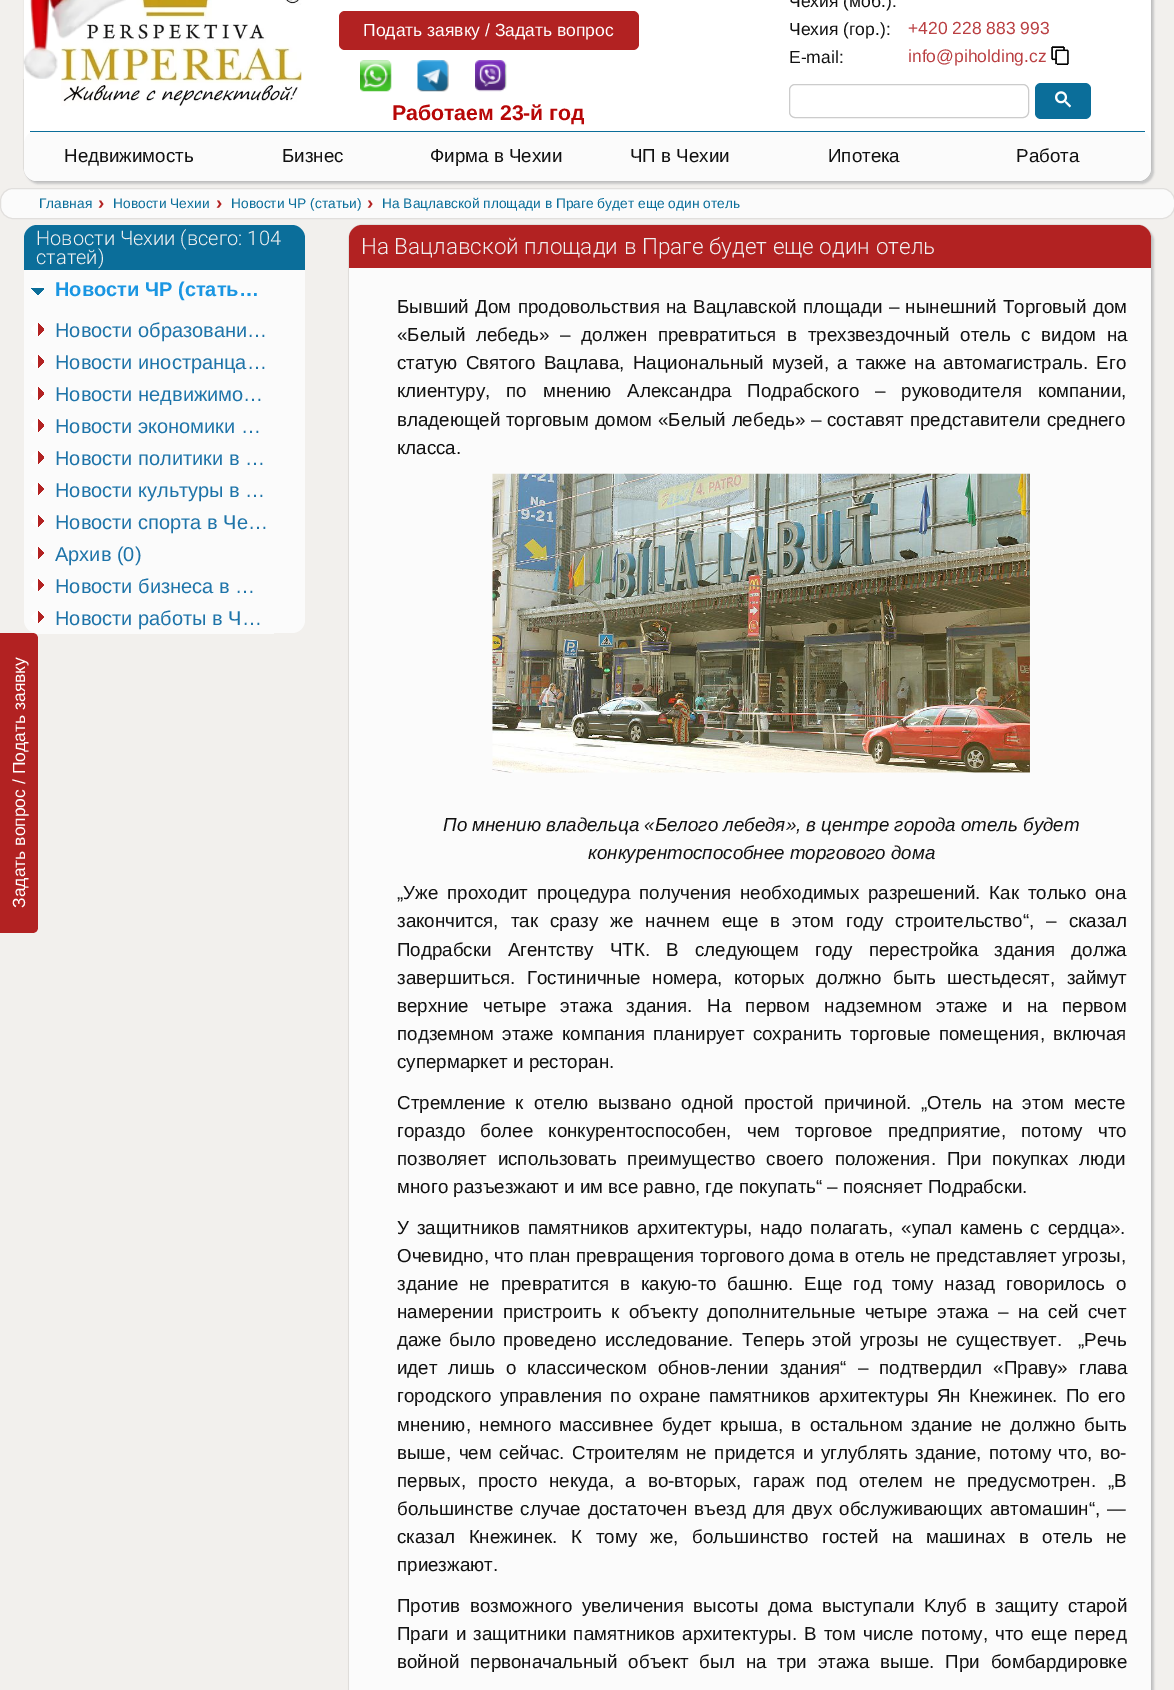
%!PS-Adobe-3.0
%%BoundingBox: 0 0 1174 1690
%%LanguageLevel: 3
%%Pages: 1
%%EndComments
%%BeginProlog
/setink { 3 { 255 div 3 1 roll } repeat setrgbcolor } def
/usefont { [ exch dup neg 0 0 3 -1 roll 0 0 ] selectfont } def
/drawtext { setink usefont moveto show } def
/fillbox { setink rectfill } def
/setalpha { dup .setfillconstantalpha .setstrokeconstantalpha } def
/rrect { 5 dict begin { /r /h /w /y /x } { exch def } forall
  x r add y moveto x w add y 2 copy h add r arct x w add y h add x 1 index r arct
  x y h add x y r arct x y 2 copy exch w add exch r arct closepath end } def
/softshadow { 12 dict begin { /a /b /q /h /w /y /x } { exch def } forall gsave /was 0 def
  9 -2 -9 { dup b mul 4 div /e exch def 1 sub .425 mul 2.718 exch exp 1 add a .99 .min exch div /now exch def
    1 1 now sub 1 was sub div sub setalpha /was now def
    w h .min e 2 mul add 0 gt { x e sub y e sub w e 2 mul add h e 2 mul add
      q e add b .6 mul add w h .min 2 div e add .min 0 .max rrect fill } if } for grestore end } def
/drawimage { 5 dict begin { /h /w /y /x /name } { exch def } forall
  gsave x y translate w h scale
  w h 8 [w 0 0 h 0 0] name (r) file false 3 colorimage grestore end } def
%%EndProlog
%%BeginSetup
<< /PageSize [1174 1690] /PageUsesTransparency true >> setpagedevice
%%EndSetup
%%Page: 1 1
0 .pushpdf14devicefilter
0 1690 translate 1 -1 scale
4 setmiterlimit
0 0 1174 1690 242 240 237 fillbox
199 199 199 setink
26 -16 1128 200 13 1 1 softshadow
167 167 167 setink
24 -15 1127 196 13 0.5 1 softshadow
255 255 255 setink
37 -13 moveto 1151 -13 lineto 1151 168 lineto 1151 175 1145 181 1138 181 curveto 37 181 lineto 30 181 24 175 24 168 curveto 24 0 lineto 24 -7 30 -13 37 -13 curveto closepath fill
(assets/img2.rgb) 61 0 241 106 drawimage
(assets/img1.rgb) 23 0 103 79 drawimage
178 34 34 setink
339 11 300 39 6 rrect fill
(Подать заявку / Задать вопрос) 363 36 /LiberationSans-Regular 17.5 255 255 255 drawtext
(assets/img3.rgb) 360 60 32 32 drawimage
(assets/img4.rgb) 417 60 32 32 drawimage
(assets/img5.rgb) 475 60 32 32 drawimage
(Работаем 23-й год) 392 120 /LiberationSans-Bold 21.25 183 7 7 drawtext
(Чехия \(моб.\):) 789 7 /LiberationSans-Regular 17.5 17 17 17 drawtext
(Чехия \(гор.\):) 789 35 /LiberationSans-Regular 17.5 17 17 17 drawtext
(+420 228 883 993) 908 34 /LiberationSans-Regular 17.5 186 63 66 drawtext
(Е-mail:) 789 63 /LiberationSans-Regular 17.5 17 17 17 drawtext
(info@piholding.cz) 908 62 /LiberationSans-Regular 17.5 186 63 66 drawtext
(assets/img6.rgb) 1051 46 18 19 drawimage
204 204 204 setink
789.5 84.5 239 33 5.5 rrect stroke
11 110 154 setink
1035 83 56 36 6 rrect fill
(assets/img7.rgb) 1055 91 16 17 drawimage
251 251 251 setink
24 131 1127 50 13 rrect fill
30 131 1115 1 11 110 154 fillbox
(Недвижимость) 64 162 /LiberationSans-Regular 18.75 17 17 17 drawtext
(Бизнес) 282 162 /LiberationSans-Regular 18.75 17 17 17 drawtext
(Фирма в Чехии) 430 162 /LiberationSans-Regular 18.75 17 17 17 drawtext
(ЧП в Чехии) 630 162 /LiberationSans-Regular 18.75 17 17 17 drawtext
(Ипотека) 828 162 /LiberationSans-Regular 18.75 17 17 17 drawtext
(Работа) 1016 162 /LiberationSans-Regular 18.75 17 17 17 drawtext
251 251 251 setink
0.5 188.5 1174 30 12.5 rrect gsave fill grestore
225 223 221 setink
stroke
(Главная) 39 208 /LiberationSans-Regular 13.75 11 110 154 drawtext
(›) 98 209 /LiberationSans-Bold 18.75 178 34 34 drawtext
(Новости Чехии) 113 208 /LiberationSans-Regular 13.75 11 110 154 drawtext
(›) 216 209 /LiberationSans-Bold 18.75 178 34 34 drawtext
(Новости ЧР \(статьи\)) 231 208 /LiberationSans-Regular 13.75 11 110 154 drawtext
(›) 367 209 /LiberationSans-Bold 18.75 178 34 34 drawtext
(Нa Вацлавской площади в Праге будет еще один отель) 382 208 /LiberationSans-Regular 13.75 11 110 154 drawtext
36 633 238 1 251 251 251 fillbox
178 34 34 setink
0 933 moveto 0 633 lineto 32 633 lineto 36 633 38 635 38 639 curveto 38 927 lineto 38 931 36 933 32 933 curveto closepath fill
/LiberationSans-Regular 17.5 usefont
255 255 255 setink
gsave 25 908 translate -90 rotate 0 0 moveto (Задать вопрос / Подать заявку) show grestore
251 251 251 setink
24 225 281 408 13 rrect fill
11 110 154 setink
37 225 moveto 292 225 lineto 299 225 305 231 305 238 curveto 305 270 lineto 24 270 lineto 24 238 lineto 24 231 30 225 37 225 curveto closepath fill
(Новости Чехии \(всего: 104) 36 245 /Roboto-Light 20 241 241 241 drawtext
(статей\)) 36 264 /Roboto-Light 20 241 241 241 drawtext
gsave 38 282 moveto 44 288.5 lineto 38 294.5 lineto 31.5 288.5 lineto closepath clip newpath
<< /ShadingType 2 /ColorSpace /DeviceRGB /Coords [38 295 38 282] /Extend [true true] /Function << /FunctionType 3 /Domain [0 1] /Functions [<< /FunctionType 2 /Domain [0 1] /C0 [0.043 0.431 0.604] /C1 [0.043 0.431 0.604] /N 1 >> << /FunctionType 2 /Domain [0 1] /C0 [1 1 1] /C1 [1 1 1] /N 1 >>] /Bounds [0.5] /Encode [0 1 0 1] >> >> shfill grestore
(Новости ЧР \(стать…) 55 296 /LiberationSans-Bold 20 26 150 226 drawtext
gsave 31.5 329 moveto 38 323 lineto 44 329 lineto 38 335.5 lineto closepath clip newpath
<< /ShadingType 2 /ColorSpace /DeviceRGB /Coords [44 329 32 329] /Extend [true true] /Function << /FunctionType 3 /Domain [0 1] /Functions [<< /FunctionType 2 /Domain [0 1] /C0 [0.698 0.133 0.133] /C1 [0.698 0.133 0.133] /N 1 >> << /FunctionType 2 /Domain [0 1] /C0 [1 1 1] /C1 [1 1 1] /N 1 >>] /Bounds [0.5] /Encode [0 1 0 1] >> >> shfill grestore
(Новости образовани…) 55 337 /LiberationSans-Regular 20 30 116 169 drawtext
gsave 31.5 361 moveto 38 355 lineto 44 361 lineto 38 367.5 lineto closepath clip newpath
<< /ShadingType 2 /ColorSpace /DeviceRGB /Coords [44 361 32 361] /Extend [true true] /Function << /FunctionType 3 /Domain [0 1] /Functions [<< /FunctionType 2 /Domain [0 1] /C0 [0.698 0.133 0.133] /C1 [0.698 0.133 0.133] /N 1 >> << /FunctionType 2 /Domain [0 1] /C0 [1 1 1] /C1 [1 1 1] /N 1 >>] /Bounds [0.5] /Encode [0 1 0 1] >> >> shfill grestore
(Новости иностранца…) 55 369 /LiberationSans-Regular 20 30 116 169 drawtext
gsave 31.5 393 moveto 38 387 lineto 44 393 lineto 38 399.5 lineto closepath clip newpath
<< /ShadingType 2 /ColorSpace /DeviceRGB /Coords [44 393 32 393] /Extend [true true] /Function << /FunctionType 3 /Domain [0 1] /Functions [<< /FunctionType 2 /Domain [0 1] /C0 [0.698 0.133 0.133] /C1 [0.698 0.133 0.133] /N 1 >> << /FunctionType 2 /Domain [0 1] /C0 [1 1 1] /C1 [1 1 1] /N 1 >>] /Bounds [0.5] /Encode [0 1 0 1] >> >> shfill grestore
(Новости недвижимо…) 55 401 /LiberationSans-Regular 20 30 116 169 drawtext
gsave 31.5 425 moveto 38 419 lineto 44 425 lineto 38 431.5 lineto closepath clip newpath
<< /ShadingType 2 /ColorSpace /DeviceRGB /Coords [44 425 32 425] /Extend [true true] /Function << /FunctionType 3 /Domain [0 1] /Functions [<< /FunctionType 2 /Domain [0 1] /C0 [0.698 0.133 0.133] /C1 [0.698 0.133 0.133] /N 1 >> << /FunctionType 2 /Domain [0 1] /C0 [1 1 1] /C1 [1 1 1] /N 1 >>] /Bounds [0.5] /Encode [0 1 0 1] >> >> shfill grestore
(Новости экономики …) 55 433 /LiberationSans-Regular 20 30 116 169 drawtext
gsave 31.5 457 moveto 38 451 lineto 44 457 lineto 38 463.5 lineto closepath clip newpath
<< /ShadingType 2 /ColorSpace /DeviceRGB /Coords [44 457 32 457] /Extend [true true] /Function << /FunctionType 3 /Domain [0 1] /Functions [<< /FunctionType 2 /Domain [0 1] /C0 [0.698 0.133 0.133] /C1 [0.698 0.133 0.133] /N 1 >> << /FunctionType 2 /Domain [0 1] /C0 [1 1 1] /C1 [1 1 1] /N 1 >>] /Bounds [0.5] /Encode [0 1 0 1] >> >> shfill grestore
(Новости политики в …) 55 465 /LiberationSans-Regular 20 30 116 169 drawtext
gsave 31.5 489 moveto 38 483 lineto 44 489 lineto 38 495 lineto closepath clip newpath
<< /ShadingType 2 /ColorSpace /DeviceRGB /Coords [44 489 32 489] /Extend [true true] /Function << /FunctionType 3 /Domain [0 1] /Functions [<< /FunctionType 2 /Domain [0 1] /C0 [0.698 0.133 0.133] /C1 [0.698 0.133 0.133] /N 1 >> << /FunctionType 2 /Domain [0 1] /C0 [1 1 1] /C1 [1 1 1] /N 1 >>] /Bounds [0.5] /Encode [0 1 0 1] >> >> shfill grestore
(Новости культуры в …) 55 497 /LiberationSans-Regular 20 30 116 169 drawtext
gsave 31.5 521 moveto 38 515 lineto 44 521 lineto 38 527 lineto closepath clip newpath
<< /ShadingType 2 /ColorSpace /DeviceRGB /Coords [44 521 32 521] /Extend [true true] /Function << /FunctionType 3 /Domain [0 1] /Functions [<< /FunctionType 2 /Domain [0 1] /C0 [0.698 0.133 0.133] /C1 [0.698 0.133 0.133] /N 1 >> << /FunctionType 2 /Domain [0 1] /C0 [1 1 1] /C1 [1 1 1] /N 1 >>] /Bounds [0.5] /Encode [0 1 0 1] >> >> shfill grestore
(Новости спорта в Че…) 55 529 /LiberationSans-Regular 20 30 116 169 drawtext
gsave 31.5 553 moveto 38 547 lineto 44 553 lineto 38 559 lineto closepath clip newpath
<< /ShadingType 2 /ColorSpace /DeviceRGB /Coords [44 553 32 553] /Extend [true true] /Function << /FunctionType 3 /Domain [0 1] /Functions [<< /FunctionType 2 /Domain [0 1] /C0 [0.698 0.133 0.133] /C1 [0.698 0.133 0.133] /N 1 >> << /FunctionType 2 /Domain [0 1] /C0 [1 1 1] /C1 [1 1 1] /N 1 >>] /Bounds [0.5] /Encode [0 1 0 1] >> >> shfill grestore
(Архив \(0\)) 55 561 /LiberationSans-Regular 20 30 116 169 drawtext
gsave 31.5 585 moveto 38 579 lineto 44 585 lineto 38 591 lineto closepath clip newpath
<< /ShadingType 2 /ColorSpace /DeviceRGB /Coords [44 585 32 585] /Extend [true true] /Function << /FunctionType 3 /Domain [0 1] /Functions [<< /FunctionType 2 /Domain [0 1] /C0 [0.698 0.133 0.133] /C1 [0.698 0.133 0.133] /N 1 >> << /FunctionType 2 /Domain [0 1] /C0 [1 1 1] /C1 [1 1 1] /N 1 >>] /Bounds [0.5] /Encode [0 1 0 1] >> >> shfill grestore
(Новости бизнеса в …) 55 593 /LiberationSans-Regular 20 30 116 169 drawtext
gsave 31.5 617 moveto 38 611 lineto 44 617 lineto 38 623 lineto closepath clip newpath
<< /ShadingType 2 /ColorSpace /DeviceRGB /Coords [44 617 32 617] /Extend [true true] /Function << /FunctionType 3 /Domain [0 1] /Functions [<< /FunctionType 2 /Domain [0 1] /C0 [0.698 0.133 0.133] /C1 [0.698 0.133 0.133] /N 1 >> << /FunctionType 2 /Domain [0 1] /C0 [1 1 1] /C1 [1 1 1] /N 1 >>] /Bounds [0.5] /Encode [0 1 0 1] >> >> shfill grestore
(Новости работы в Ч…) 55 625 /LiberationSans-Regular 20 30 116 169 drawtext
199 199 199 setink
351 228 803 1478 13 1 1 softshadow
167 167 167 setink
349 225 802 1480 13 0.5 1 softshadow
251 251 251 setink
349 225 802 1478 13 rrect fill
178 34 34 setink
362 225 moveto 1138 225 lineto 1145 225 1151 231 1151 238 curveto 1151 268 lineto 349 268 lineto 349 238 lineto 349 231 355 225 362 225 curveto closepath fill
(Нa Вацлавской площади в Праге будет еще один отель) 361 254 /Roboto-Light 22.5 241 241 241 drawtext
/LiberationSans-Regular 18.75 usefont
17 17 17 setink
397 313 moveto 1.25 0 32 (Бывший Дом продовольствия на Вацлавской площади – нынешний Торговый дом) widthshow
397 341 moveto 5.5 0 32 («Белый лебедь» – должен превратиться в трехзвездочный отель с видом на) widthshow
397 369 moveto 3 0 32 (статую Святого Вацлава, Национальный музей, a также на автомагистраль. Его) widthshow
397 397 moveto 10.75 0 32 (клиентуру, по мнению Александра Подрабского – руководителя компании,) widthshow
397 426 moveto 0.5 0 32 (владеющей торговым домом «Белый лебедь» – составят представители среднего) widthshow
(класса.) 397 454 /LiberationSans-Regular 18.75 17 17 17 drawtext
(assets/img8.rgb) 492 473 538 300 drawimage
(По мнению владельца «Белого лебедя», в центре города отель будет) 443 831 /LiberationSans-Italic 18.75 17 17 17 drawtext
(конкурентоспособнее торгового дома) 588 859 /LiberationSans-Italic 18.75 17 17 17 drawtext
/LiberationSans-Regular 18.75 usefont
397 899 moveto 3.75 0 32 („Уже проходит процедура получения необходимых разрешений. Как только она) widthshow
397 927 moveto 6.9 0 32 (закончится, так сразу же начнем еще в этом году строительство“, – сказал) widthshow
397 956 moveto 11 0 32 (Подрабски Агентству ЧТК. В следующем году перестройка здания должа) widthshow
397 984 moveto 6.25 0 32 (завершиться. Гостиничные номера, которых должно быть шестьдесят, займут) widthshow
397 1012 moveto 9.25 0 32 (верхние четыре этажа здания. На первом надземном этаже и на первом) widthshow
397 1040 moveto 3 0 32 (подземном этаже компания планирует сохранить торговые помещения, включая) widthshow
(супермаркет и ресторан.) 397 1068 /LiberationSans-Regular 18.75 17 17 17 drawtext
397 1109 moveto 4.75 0 32 (Стремление к отелю вызвано одной простой причиной. „Отель на этом месте) widthshow
397 1137 moveto 10 0 32 (гораздо более конкурентоспособен, чем торговое предприятие, потому что) widthshow
397 1165 moveto 5.75 0 32 (позволяет использовать преимущество своего положения. При покупках люди) widthshow
(много разъезжают и им все равно, где покупать“ – поясняет Пoдрaбски.) 397 1193 /LiberationSans-Regular 18.75 17 17 17 drawtext
397 1234 moveto 2.75 0 32 (У защитников памятников архитектуры, надо полагать, «упал камень с сердца».) widthshow
397 1262 moveto 0.1 0 32 (Очевидно, что план превращения торгового дома в отель не представляет угрозы,) widthshow
397 1290 moveto 5.6 0 32 (здание не превратится в какую-то башню. Еще год тому назад говорилось о) widthshow
397 1318 moveto 4.25 0 32 (намерении пристроить к объекту дополнительные четыре этажа – на сей счет) widthshow
397 1346 moveto 2.9 0 32 (даже было проведено исследование. Теперь этой угрозы не существует.  „Речь) widthshow
397 1374 moveto 5.75 0 32 (идет лишь о классическом обнов-лении здания“ – подтвердил «Праву» глава) widthshow
397 1402 moveto 3 0 32 (городского управления по охране памятников архитектуры Ян Кнежинек. По его) widthshow
397 1431 moveto 3.25 0 32 (мнению, немного массивнее будет крыша, в остальном здание не должно быть) widthshow
397 1459 moveto 2.4 0 32 (выше, чем сейчас. Строителям не придется и углублять здание, потому что, во-) widthshow
397 1487 moveto 6.5 0 32 (первых, просто некуда, а во-вторых, гараж под отелем не предусмотрен. „В) widthshow
397 1515 moveto 2 0 32 (большинстве случае достаточен въезд для двух обслуживающих автомашин“, —) widthshow
397 1543 moveto 8.4 0 32 (сказал Кнежинек. К тому же, большинство гостей на машинах в отель не) widthshow
(приезжают.) 397 1571 /LiberationSans-Regular 18.75 17 17 17 drawtext
397 1612 moveto 4 0 32 (Против возможного увеличения высоты дома выступали Kлуб в защиту старой) widthshow
397 1640 moveto 1.9 0 32 (Праги и защитники памятников архитектуры. В том числе потому, что еще перед) widthshow
397 1668 moveto 5.75 0 32 (войной первоначальный объект был на три этажа выше. При бомбардировке) widthshow
.poppdf14devicefilter showpage
%%EOF
